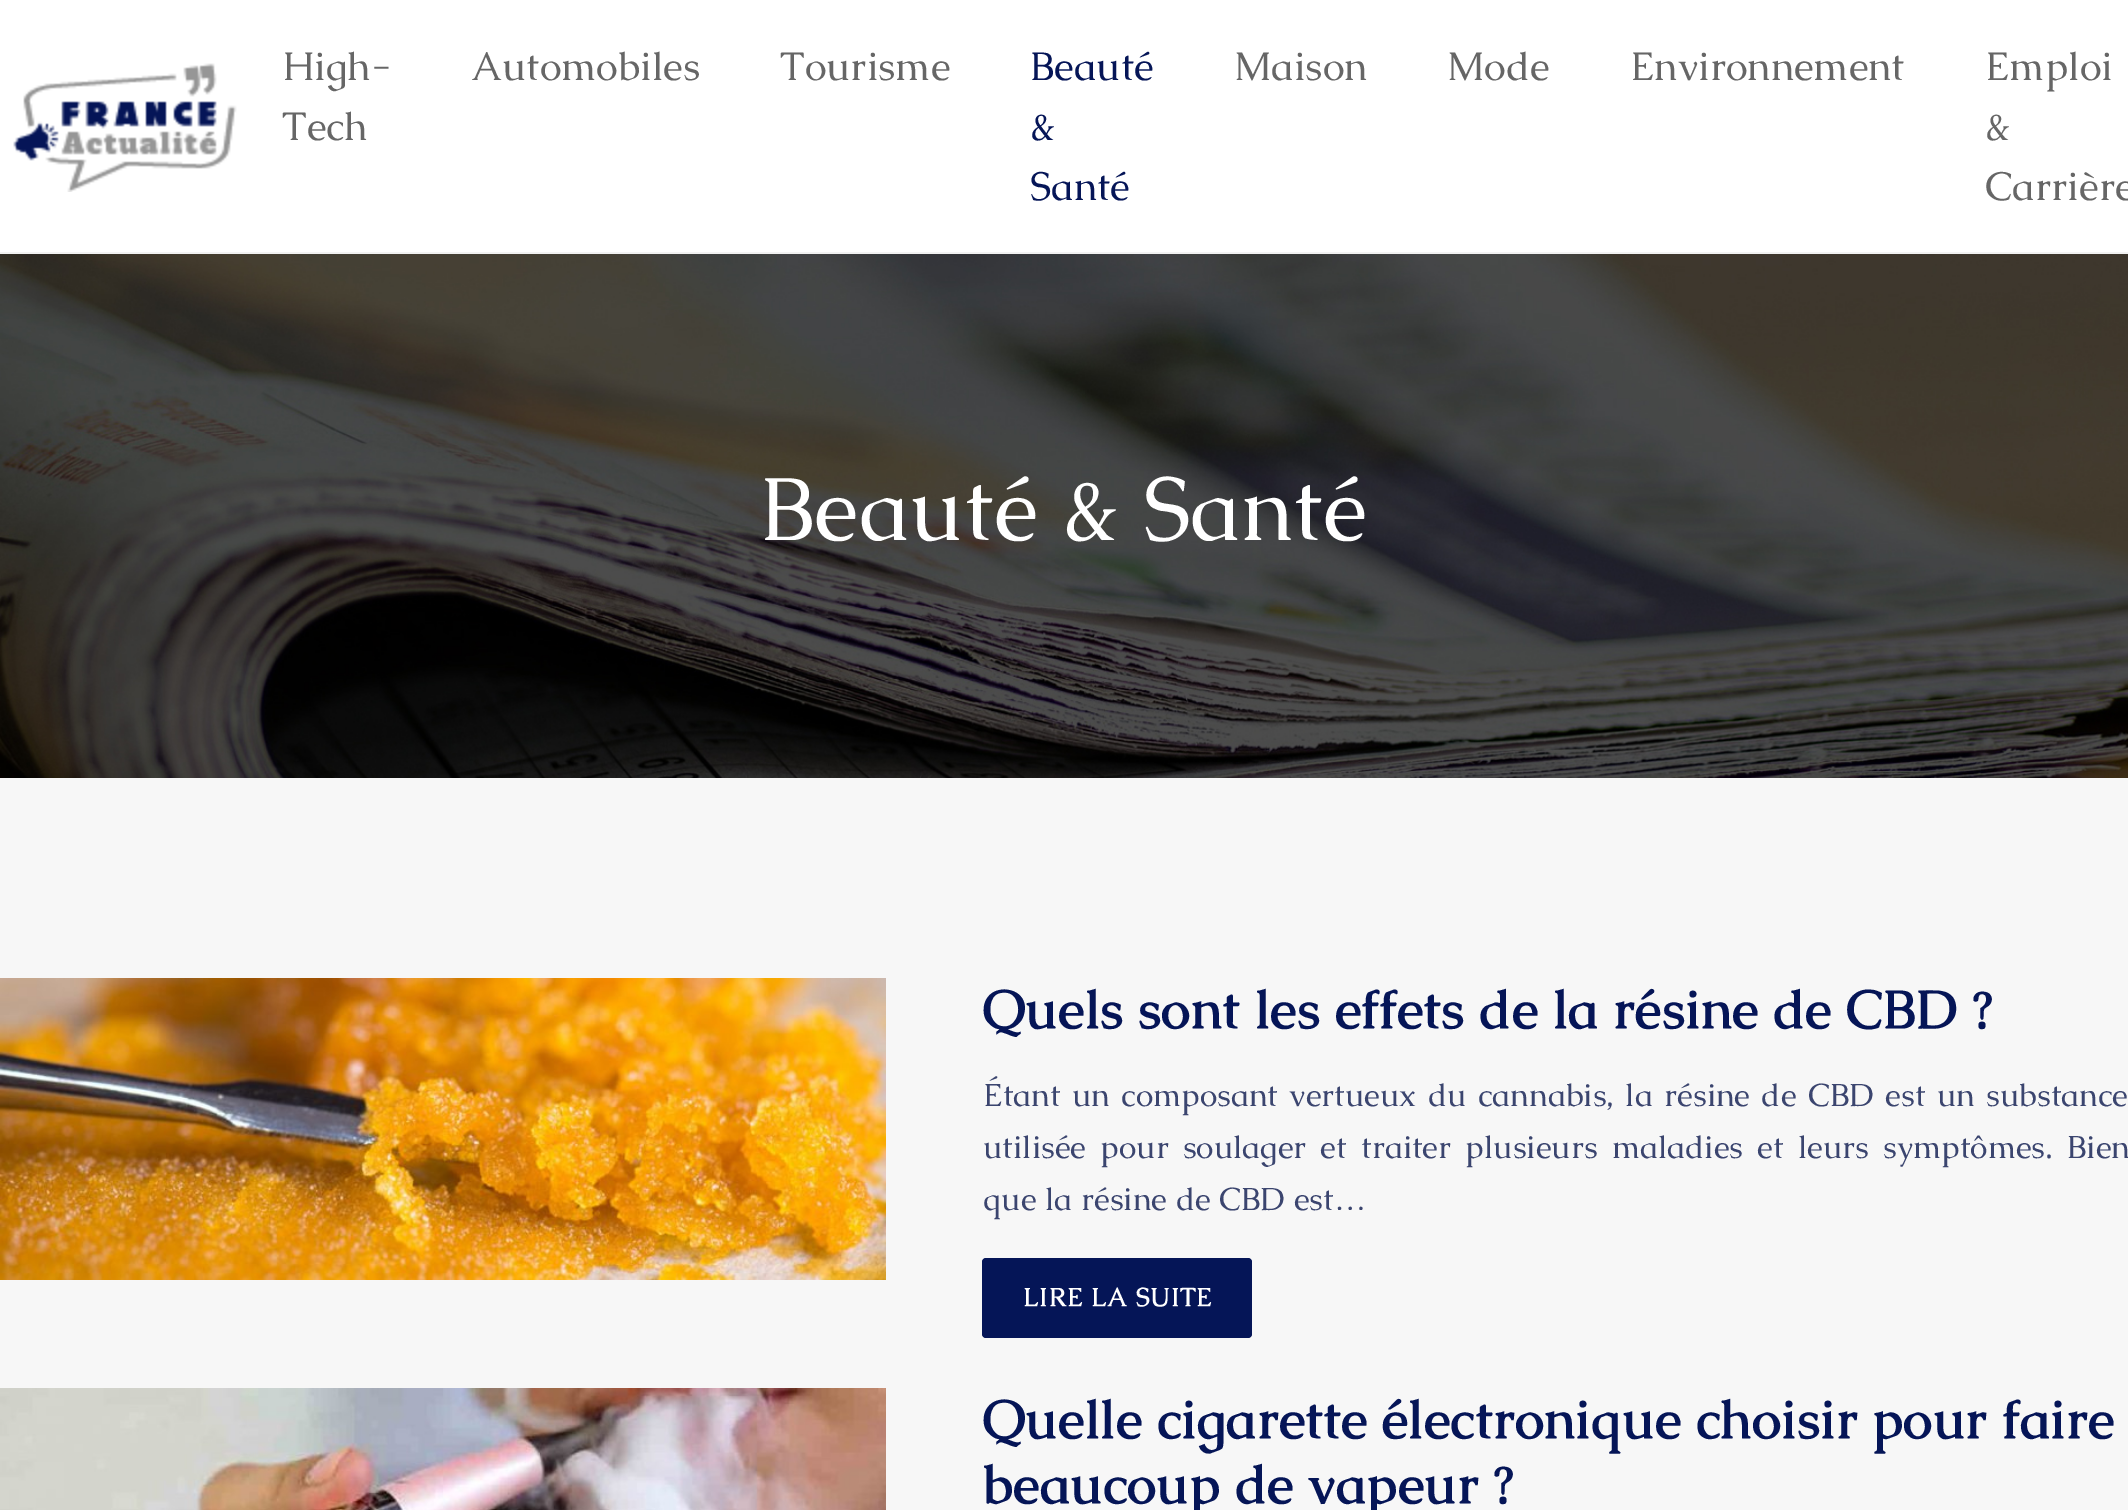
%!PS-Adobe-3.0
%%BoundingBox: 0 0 2128 1510
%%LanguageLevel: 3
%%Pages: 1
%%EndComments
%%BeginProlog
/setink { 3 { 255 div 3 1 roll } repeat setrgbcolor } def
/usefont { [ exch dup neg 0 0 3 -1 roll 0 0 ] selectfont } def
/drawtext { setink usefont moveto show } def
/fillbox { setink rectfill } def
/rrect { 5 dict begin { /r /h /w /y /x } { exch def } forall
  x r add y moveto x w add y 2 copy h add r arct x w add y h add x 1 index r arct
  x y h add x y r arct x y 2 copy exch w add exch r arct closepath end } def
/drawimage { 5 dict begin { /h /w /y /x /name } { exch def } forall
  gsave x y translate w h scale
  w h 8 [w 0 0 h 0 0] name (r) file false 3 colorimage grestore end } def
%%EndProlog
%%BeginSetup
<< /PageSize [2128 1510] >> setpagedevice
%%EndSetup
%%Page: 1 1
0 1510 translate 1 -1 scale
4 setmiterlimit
0 0 2128 1510 247 247 247 fillbox
0 0 2128 252 255 255 255 fillbox
0 252 2128 2 242 242 242 fillbox
(assets/img1.rgb) 13 63 224 129 drawimage
(High-) 282 80 /Caudex-Regular 40 102 102 102 drawtext
(Tech) 282 140 /Caudex-Regular 40 102 102 102 drawtext
(Automobiles) 471 80 /Caudex-Regular 40 102 102 102 drawtext
(Tourisme) 780 80 /Caudex-Regular 40 102 102 102 drawtext
(Beauté) 1030 80 /Caudex-Regular 40 5 21 87 drawtext
(&) 1030 140 /Caudex-Regular 40 5 21 87 drawtext
(Santé) 1030 200 /Caudex-Regular 40 5 21 87 drawtext
(Maison) 1234 80 /Caudex-Regular 40 102 102 102 drawtext
(Mode) 1447 80 /Caudex-Regular 40 102 102 102 drawtext
(Environnement) 1630 80 /Caudex-Regular 40 102 102 102 drawtext
(Emploi) 1985 80 /Caudex-Regular 40 102 102 102 drawtext
(&) 1985 140 /Caudex-Regular 40 102 102 102 drawtext
(Carrière) 1985 200 /Caudex-Regular 40 102 102 102 drawtext
(assets/img2.rgb) 0 254 2128 524 drawimage
(Beauté & Santé) 760 540 /Caudex-Regular 90 255 255 255 drawtext
(assets/img3.rgb) 0 978 886 302 drawimage
(Quels sont les effets de la résine de CBD ?) 983 1028 /Caudex-Bold 54 5 21 87 drawtext
/Caudex-Regular 32 usefont
59 69 111 setink
983 1106 moveto 2.75 0 32 (Étant un composant vertueux du cannabis, la résine de CBD est un substance) widthshow
983 1158 moveto 5.5 0 32 (utilisée pour soulager et traiter plusieurs maladies et leurs symptômes. Bien) widthshow
(que la résine de CBD est…) 983 1210 /Caudex-Regular 32 59 69 111 drawtext
5 21 87 setink
982 1258 270 80 4 rrect fill
/Caudex-Bold 26 usefont
255 255 255 setink
1023 1306 moveto 0.6 0 (LIRE LA SUITE) ashow
(assets/img4.rgb) 0 1388 886 122 drawimage
(Quelle cigarette électronique choisir pour faire) 983 1438 /Caudex-Bold 54 5 21 87 drawtext
(beaucoup de vapeur ?) 983 1503 /Caudex-Bold 54 5 21 87 drawtext
showpage
%%EOF
